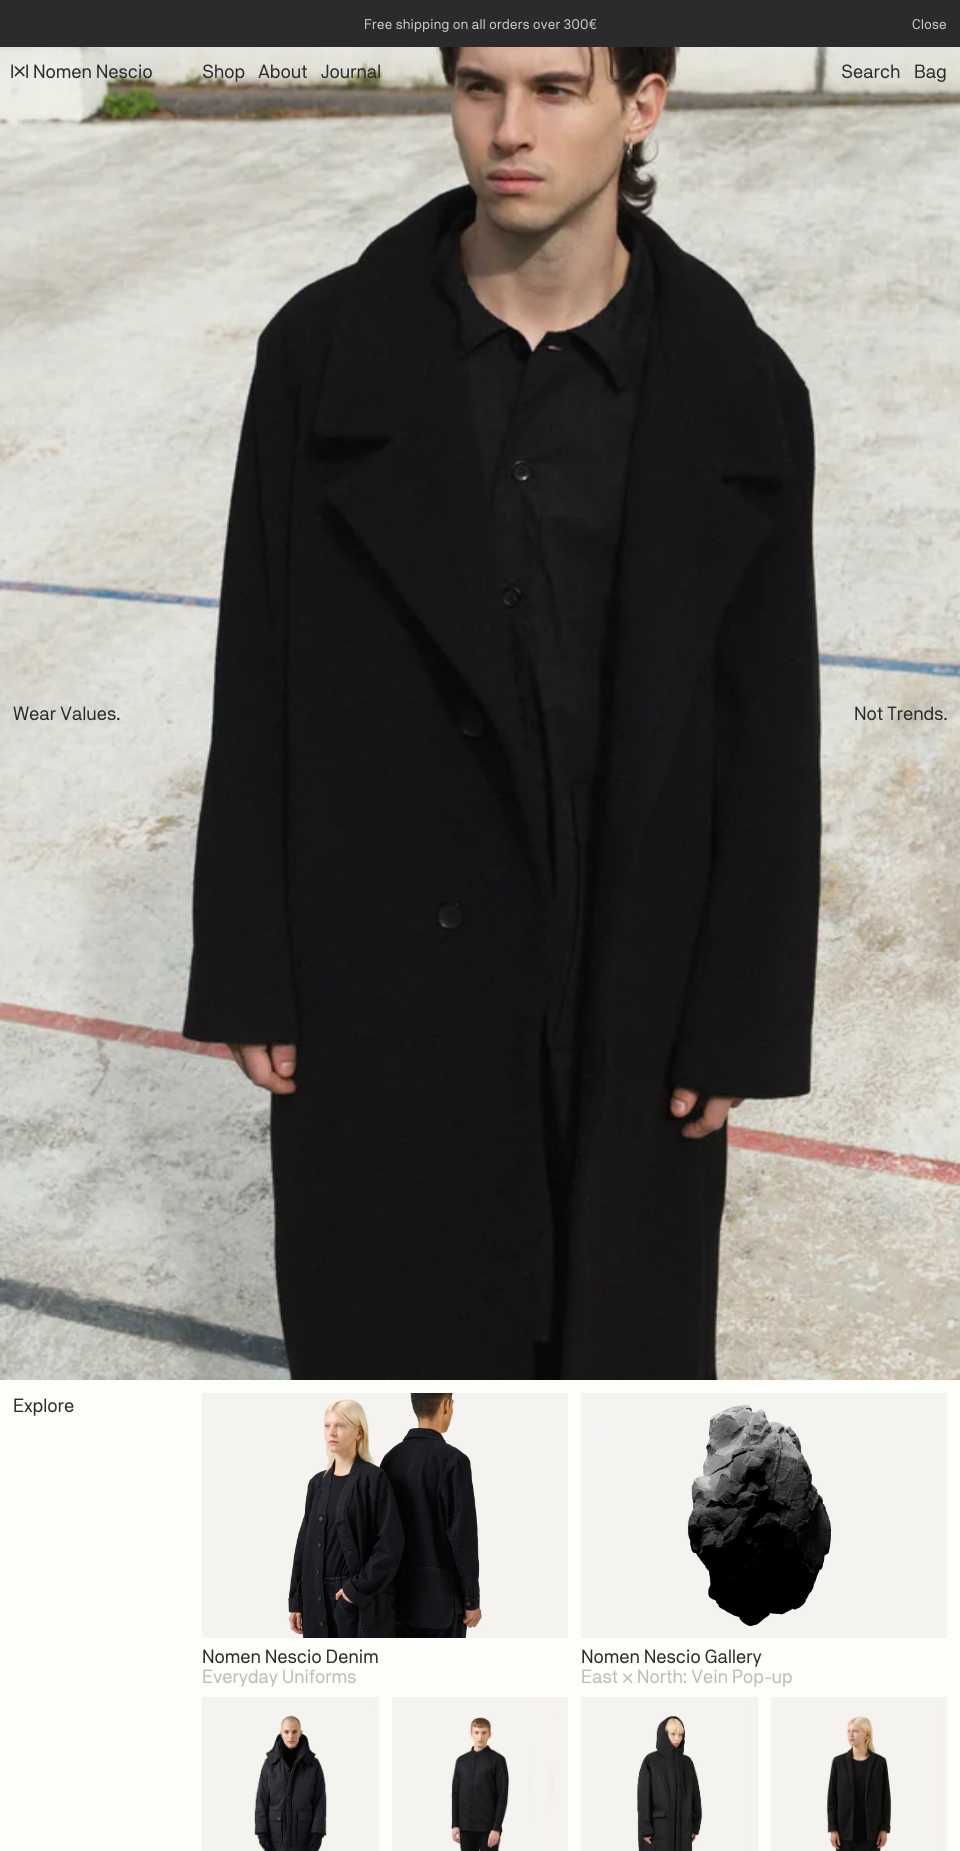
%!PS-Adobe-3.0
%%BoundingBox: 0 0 960 1851
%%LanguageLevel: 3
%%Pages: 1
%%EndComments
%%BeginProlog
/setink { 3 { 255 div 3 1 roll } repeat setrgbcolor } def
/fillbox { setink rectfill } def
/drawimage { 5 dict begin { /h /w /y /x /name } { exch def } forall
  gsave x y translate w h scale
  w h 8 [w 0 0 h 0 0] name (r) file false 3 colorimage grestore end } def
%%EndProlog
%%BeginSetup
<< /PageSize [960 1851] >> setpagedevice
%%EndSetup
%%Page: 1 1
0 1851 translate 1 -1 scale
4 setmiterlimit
0 0 960 1851 253 253 250 fillbox
0 0 960 47 43 43 46 fillbox
(assets/img1.rgb) 365 19 232 13 drawimage
(assets/img2.rgb) 912 19 34 11 drawimage
(assets/img3.rgb) 0 47 960 1333 drawimage
(assets/img4.rgb) 13 706 107 15 drawimage
(assets/img5.rgb) 855 706 92 15 drawimage
(assets/img6.rgb) 14 1398 60 18 drawimage
(assets/img7.rgb) 202 1393 366 245 drawimage
(assets/img8.rgb) 267 1393 235 245 drawimage
(assets/img9.rgb) 203 1649 175 15 drawimage
(assets/img10.rgb) 203 1669 153 18 drawimage
(assets/img11.rgb) 581 1393 366 245 drawimage
(assets/img12.rgb) 667 1393 185 245 drawimage
(assets/img13.rgb) 582 1649 180 18 drawimage
(assets/img14.rgb) 582 1669 210 18 drawimage
202 1697 177 154 245 243 238 fillbox
(assets/img15.rgb) 372 1710 2 141 drawimage
(assets/img16.rgb) 235 1698 137 153 drawimage
(assets/img17.rgb) 372 1698 2 153 drawimage
392 1697 176 154 245 243 238 fillbox
(assets/img18.rgb) 529 1711 31 140 drawimage
(assets/img19.rgb) 432 1698 97 153 drawimage
(assets/img20.rgb) 529 1698 31 153 drawimage
581 1697 177 154 245 243 238 fillbox
(assets/img21.rgb) 746 1708 4 143 drawimage
(assets/img22.rgb) 618 1697 128 154 drawimage
(assets/img23.rgb) 746 1697 4 154 drawimage
771 1697 176 154 245 243 238 fillbox
(assets/img24.rgb) 936 1708 5 143 drawimage
(assets/img25.rgb) 808 1702 128 149 drawimage
(assets/img26.rgb) 936 1702 4 149 drawimage
(assets/img27.rgb) 11 64 17 14 drawimage
(assets/img28.rgb) 34 64 118 15 drawimage
(assets/img29.rgb) 203 64 42 18 drawimage
(assets/img30.rgb) 258 64 49 15 drawimage
(assets/img31.rgb) 321 64 59 15 drawimage
(assets/img32.rgb) 842 64 58 15 drawimage
(assets/img33.rgb) 915 64 31 18 drawimage
showpage
%%EOF
